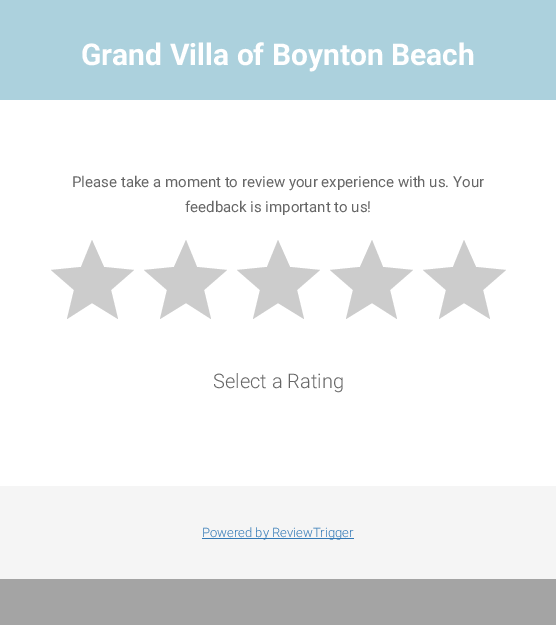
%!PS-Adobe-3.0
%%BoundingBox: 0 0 556 625
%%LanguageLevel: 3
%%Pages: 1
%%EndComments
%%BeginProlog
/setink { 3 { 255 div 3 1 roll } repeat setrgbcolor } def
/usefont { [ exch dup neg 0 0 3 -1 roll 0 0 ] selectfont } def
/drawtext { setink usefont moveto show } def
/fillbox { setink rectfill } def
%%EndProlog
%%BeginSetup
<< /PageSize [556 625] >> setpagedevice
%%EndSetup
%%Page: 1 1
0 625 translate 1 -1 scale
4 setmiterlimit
0 0 556 625 164 164 164 fillbox
0 100 556 386 255 255 255 fillbox
0 0 556 100 172 209 221 fillbox
(Grand Villa of Boynton Beach) 81 65 /Roboto-Bold 30 255 255 255 drawtext
(Please take a moment to review your experience with us. Your) 72 187 /Roboto-Regular 15 102 102 102 drawtext
(feedback is important to us!) 185 212 /Roboto-Regular 15 102 102 102 drawtext
204 204 204 setink
92 303 moveto 67 319 lineto 74 290 lineto 51 270 lineto 81 267 lineto 92 240 lineto 104 267 lineto 134 270 lineto 111 290 lineto 118 319 lineto closepath eofill
186 303 moveto 160 319 lineto 167 290 lineto 144 270 lineto 174 267 lineto 186 240 lineto 197 267 lineto 227 270 lineto 204 290 lineto 211 319 lineto closepath eofill
278 303 moveto 253 319 lineto 260 290 lineto 237 270 lineto 267 267 lineto 278 240 lineto 290 267 lineto 320 270 lineto 297 290 lineto 304 319 lineto closepath eofill
372 303 moveto 346 319 lineto 353 290 lineto 330 270 lineto 360 267 lineto 372 240 lineto 383 267 lineto 413 270 lineto 390 290 lineto 397 319 lineto closepath eofill
464 303 moveto 439 319 lineto 446 290 lineto 423 270 lineto 453 267 lineto 464 240 lineto 476 267 lineto 506 270 lineto 483 290 lineto 490 319 lineto closepath eofill
(Select a Rating) 213 388 /Roboto-Light 20 102 102 102 drawtext
0 486 556 93 245 245 245 fillbox
202 538 152 1 51 122 183 fillbox
(Powered by ReviewTrigger) 202 537 /Roboto-Light 13 51 122 183 drawtext
showpage
%%EOF
